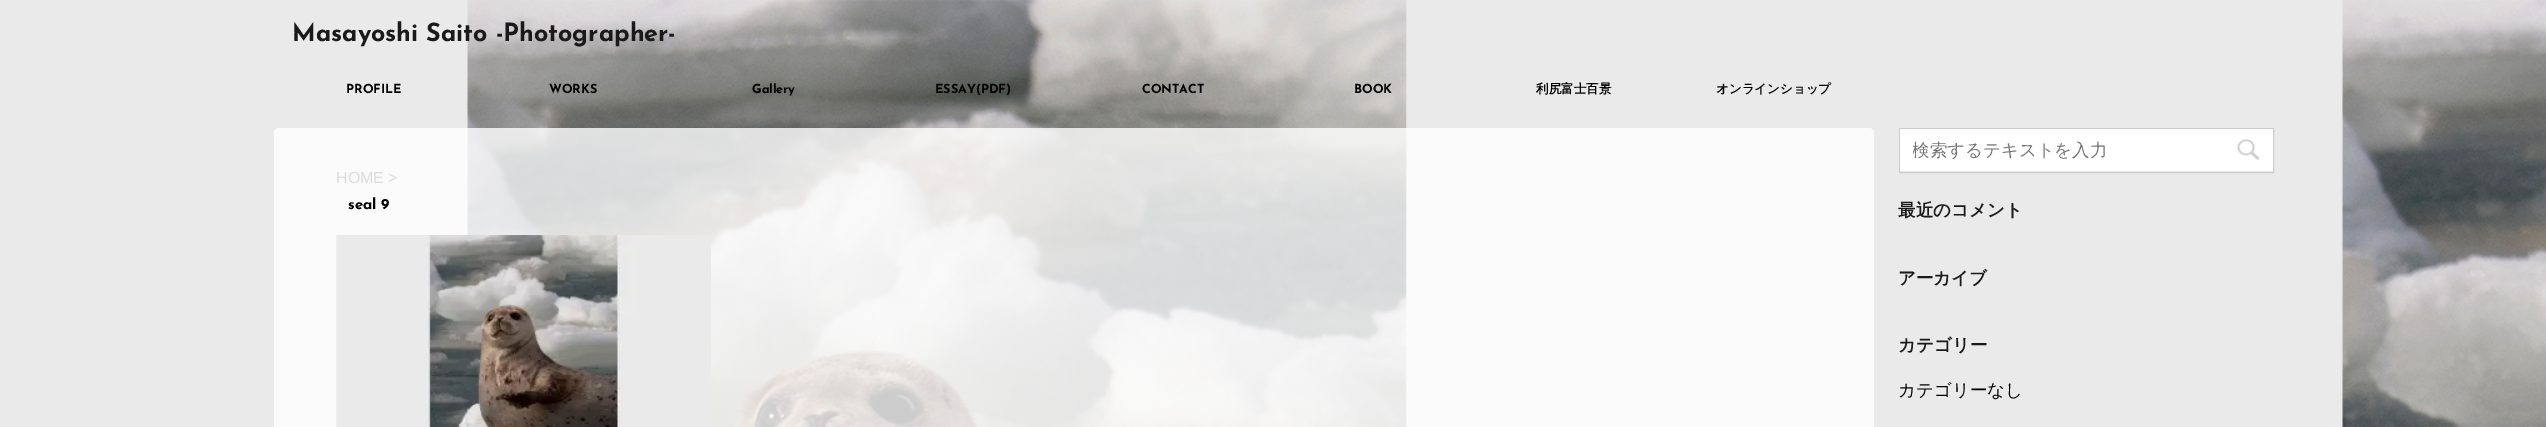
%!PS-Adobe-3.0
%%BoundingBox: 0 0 2546 427
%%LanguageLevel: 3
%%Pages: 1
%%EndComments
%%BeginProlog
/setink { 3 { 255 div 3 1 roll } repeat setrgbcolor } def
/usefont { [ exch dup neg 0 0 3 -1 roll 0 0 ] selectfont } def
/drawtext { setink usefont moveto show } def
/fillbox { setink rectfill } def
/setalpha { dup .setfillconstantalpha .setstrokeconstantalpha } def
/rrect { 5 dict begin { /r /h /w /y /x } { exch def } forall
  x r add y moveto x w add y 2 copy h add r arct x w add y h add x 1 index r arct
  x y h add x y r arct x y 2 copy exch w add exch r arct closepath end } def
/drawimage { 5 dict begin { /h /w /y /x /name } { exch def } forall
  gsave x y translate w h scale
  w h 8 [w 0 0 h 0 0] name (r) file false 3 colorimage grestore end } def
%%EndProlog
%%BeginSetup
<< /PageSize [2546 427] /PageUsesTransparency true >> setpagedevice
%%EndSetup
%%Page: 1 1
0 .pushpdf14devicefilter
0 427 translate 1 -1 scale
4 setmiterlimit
0 0 2546 427 255 255 255 fillbox
(assets/img1.rgb) 0 0 2546 427 drawimage
(Masayoshi Saito -Photographer-) 292 41 /JosefinSans-Bold 25 26 26 26 drawtext
(PROFILE) 346 93 /JosefinSans-Bold 12.5 0 0 0 drawtext
(WORKS) 549 93 /JosefinSans-Bold 12.5 0 0 0 drawtext
(Gallery) 752 93 /JosefinSans-Bold 12.5 0 0 0 drawtext
(ESSAY\(PDF\)) 935 93 /JosefinSans-Bold 12.5 0 0 0 drawtext
(CONTACT) 1142 93 /JosefinSans-Bold 12.5 0 0 0 drawtext
(BOOK) 1354 93 /JosefinSans-Bold 12.5 0 0 0 drawtext
(利尻富士百景) 1536 93 /WenQuanYiZenHei-Bold 12.5 0 0 0 drawtext
(オンラインショップ) 1716 93 /WenQuanYiZenHei-Bold 12.5 0 0 0 drawtext
0.8 setalpha
255 255 255 setink
274 128 1600 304 5 rrect fill
1 setalpha
(HOME >) 336 183 /LiberationSans-Regular 16 219 219 219 drawtext
(seal 9) 348 209 /JosefinSans-Bold 15 0 0 0 drawtext
(assets/img2.rgb) 336 235 375 192 drawimage
204 204 204 setink
1899.5 128.5 374 44 rectstroke
1900 129 373 42 255 255 255 fillbox
gsave
1913 140 278 23 rectclip
(検索するテキストを入力) 1912 156 /WenQuanYiZenHei-Medium 17.5 117 117 117 drawtext
grestore
(assets/img3.rgb) 2237 139 23 21 drawimage
(最近のコメント) 1898 216 /WenQuanYiZenHei-Bold 17.5 26 26 26 drawtext
(アーカイブ) 1898 284 /WenQuanYiZenHei-Bold 17.5 26 26 26 drawtext
(カテゴリー) 1898 351 /WenQuanYiZenHei-Bold 17.5 26 26 26 drawtext
(カテゴリーなし) 1898 396 /WenQuanYiZenHei-Medium 17.5 0 0 0 drawtext
.poppdf14devicefilter showpage
%%EOF
